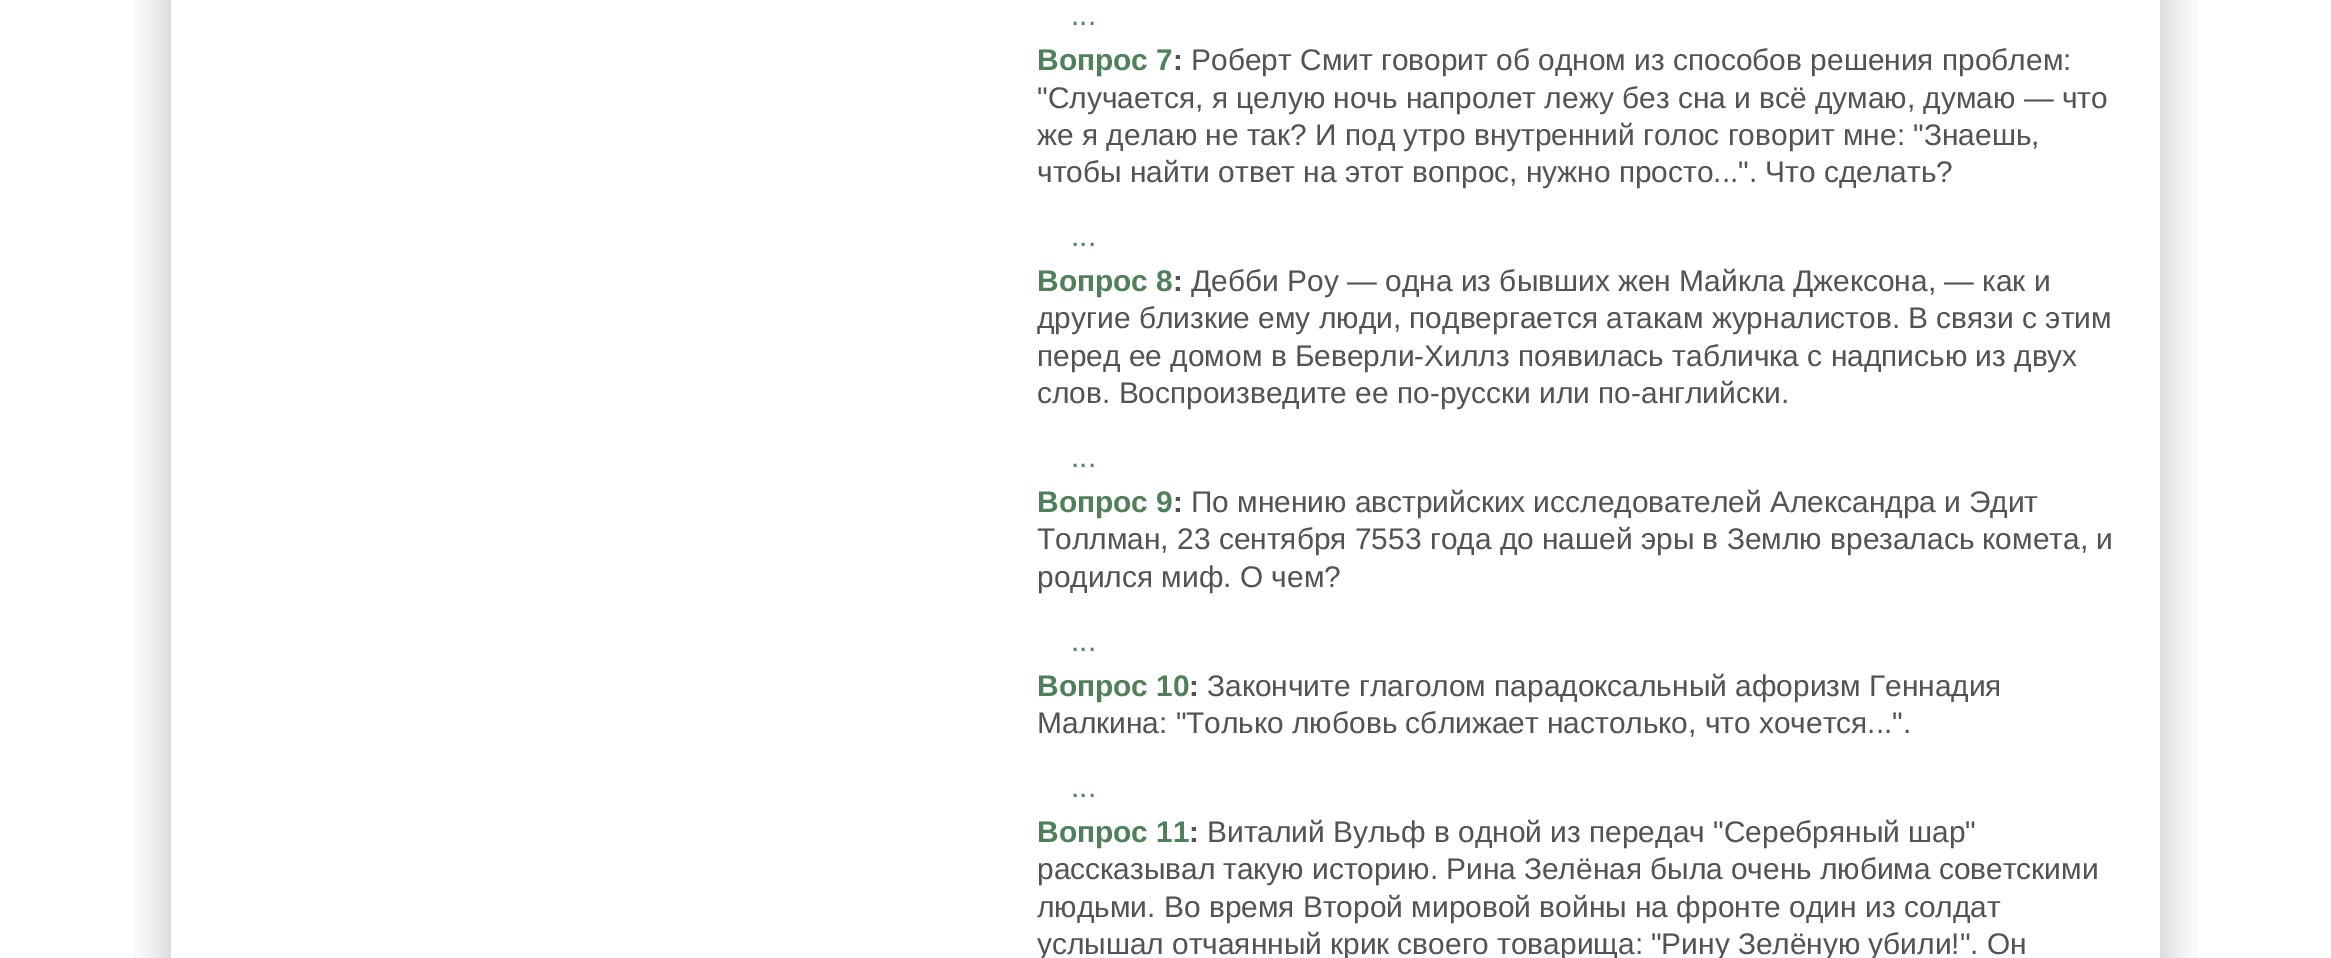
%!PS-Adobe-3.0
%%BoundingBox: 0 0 2331 958
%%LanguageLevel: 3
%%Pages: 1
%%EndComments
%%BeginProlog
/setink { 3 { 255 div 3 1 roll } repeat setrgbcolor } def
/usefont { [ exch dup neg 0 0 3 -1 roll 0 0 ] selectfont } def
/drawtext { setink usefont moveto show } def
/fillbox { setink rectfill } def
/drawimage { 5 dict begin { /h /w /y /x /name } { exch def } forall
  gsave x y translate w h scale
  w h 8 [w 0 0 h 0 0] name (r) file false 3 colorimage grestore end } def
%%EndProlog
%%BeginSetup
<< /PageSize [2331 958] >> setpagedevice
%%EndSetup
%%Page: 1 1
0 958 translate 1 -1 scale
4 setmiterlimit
0 0 2331 958 255 255 255 fillbox
(assets/img1.rgb) 133 0 38 958 drawimage
(assets/img2.rgb) 2160 0 38 958 drawimage
(...) 1071 25 /LiberationSans-Regular 29.9 79 127 91 drawtext
(Вопрос 7) 1037 70 /LiberationSans-Bold 29.9 79 127 91 drawtext
(:) 1173 70 /LiberationSans-Bold 29.9 83 83 83 drawtext
(Роберт Смит говорит об одном из способов решения проблем:) 1191 70 /LiberationSans-Regular 29.9 83 83 83 drawtext
("Случается, я целую ночь напролет лежу без сна и всё думаю, думаю — что) 1037 108 /LiberationSans-Regular 29.9 83 83 83 drawtext
(же я делаю не так? И под утро внутренний голос говорит мне: "Знаешь,) 1037 145 /LiberationSans-Regular 29.9 83 83 83 drawtext
(чтобы найти ответ на этот вопрос, нужно просто...". Что сделать?) 1037 182 /LiberationSans-Regular 29.9 83 83 83 drawtext
(...) 1071 246 /LiberationSans-Regular 29.9 79 127 91 drawtext
(Вопрос 8) 1037 291 /LiberationSans-Bold 29.9 79 127 91 drawtext
(:) 1173 291 /LiberationSans-Bold 29.9 83 83 83 drawtext
(Дебби Роу — одна из бывших жен Майкла Джексона, — как и) 1191 291 /LiberationSans-Regular 29.9 83 83 83 drawtext
(другие близкие ему люди, подвергается атакам журналистов. В связи с этим) 1037 328 /LiberationSans-Regular 29.9 83 83 83 drawtext
(перед ее домом в Беверли-Хиллз появилась табличка с надписью из двух) 1037 366 /LiberationSans-Regular 29.9 83 83 83 drawtext
(слов. Воспроизведите ее по-русски или по-английски.) 1037 403 /LiberationSans-Regular 29.9 83 83 83 drawtext
(...) 1071 467 /LiberationSans-Regular 29.9 79 127 91 drawtext
(Вопрос 9) 1037 512 /LiberationSans-Bold 29.9 79 127 91 drawtext
(:) 1173 512 /LiberationSans-Bold 29.9 83 83 83 drawtext
/LiberationSans-Regular 29.9 usefont
1191 512 moveto -0.25 0 32 (По мнению австрийских исследователей Александра и Эдит) widthshow
(Толлман, 23 сентября 7553 года до нашей эры в Землю врезалась комета, и) 1037 549 /LiberationSans-Regular 29.9 83 83 83 drawtext
(родился миф. О чем?) 1037 587 /LiberationSans-Regular 29.9 83 83 83 drawtext
(...) 1071 651 /LiberationSans-Regular 29.9 79 127 91 drawtext
(Вопрос 10) 1037 696 /LiberationSans-Bold 29.9 79 127 91 drawtext
(:) 1189 696 /LiberationSans-Bold 29.9 83 83 83 drawtext
(Закончите глаголом парадоксальный афоризм Геннадия) 1207 696 /LiberationSans-Regular 29.9 83 83 83 drawtext
(Малкина: "Только любовь сближает настолько, что хочется...".) 1037 733 /LiberationSans-Regular 29.9 83 83 83 drawtext
(...) 1071 797 /LiberationSans-Regular 29.9 79 127 91 drawtext
(Вопрос 11) 1037 842 /LiberationSans-Bold 29.9 79 127 91 drawtext
(:) 1189 842 /LiberationSans-Bold 29.9 83 83 83 drawtext
(Виталий Вульф в одной из передач "Серебряный шар") 1207 842 /LiberationSans-Regular 29.9 83 83 83 drawtext
1037 879 moveto -0.25 0 32 (рассказывал такую историю. Рина Зелёная была очень любима советскими) widthshow
(людьми. Во время Второй мировой войны на фронте один из солдат) 1037 917 /LiberationSans-Regular 29.9 83 83 83 drawtext
1037 954 moveto -0.25 0 32 (услышал отчаянный крик своего товарища: "Рину Зелёную убили!". Он) widthshow
showpage
%%EOF
